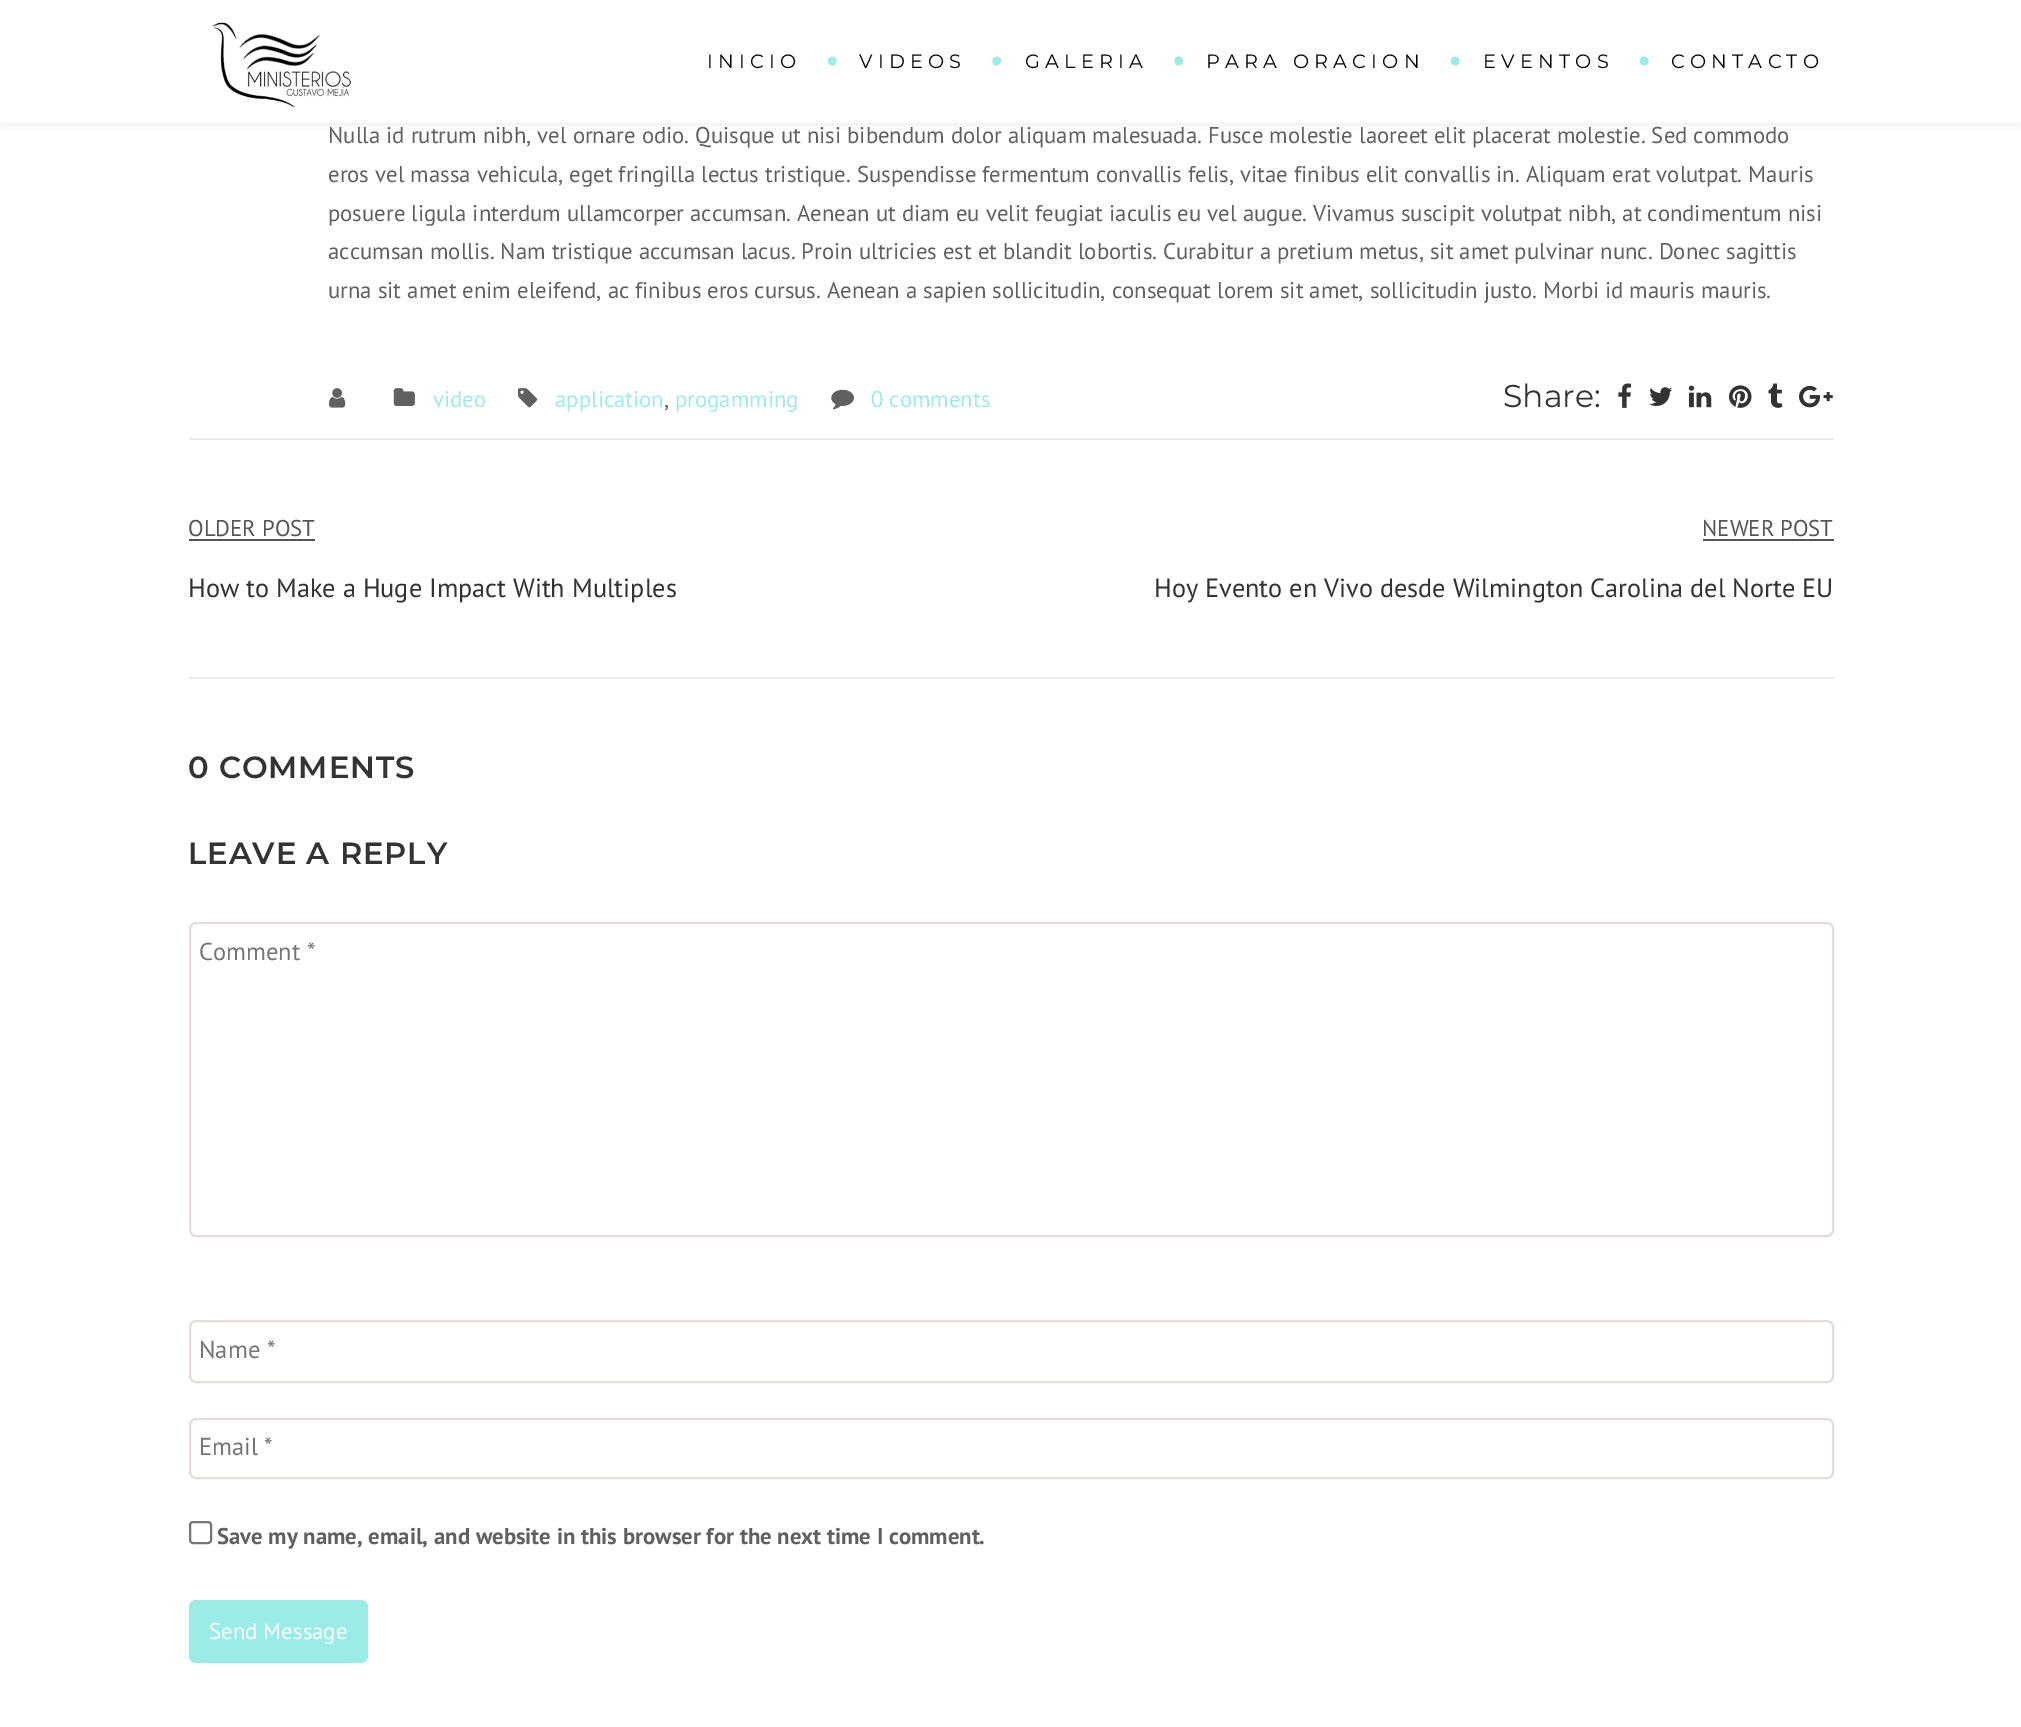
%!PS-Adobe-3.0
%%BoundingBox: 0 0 2021 1727
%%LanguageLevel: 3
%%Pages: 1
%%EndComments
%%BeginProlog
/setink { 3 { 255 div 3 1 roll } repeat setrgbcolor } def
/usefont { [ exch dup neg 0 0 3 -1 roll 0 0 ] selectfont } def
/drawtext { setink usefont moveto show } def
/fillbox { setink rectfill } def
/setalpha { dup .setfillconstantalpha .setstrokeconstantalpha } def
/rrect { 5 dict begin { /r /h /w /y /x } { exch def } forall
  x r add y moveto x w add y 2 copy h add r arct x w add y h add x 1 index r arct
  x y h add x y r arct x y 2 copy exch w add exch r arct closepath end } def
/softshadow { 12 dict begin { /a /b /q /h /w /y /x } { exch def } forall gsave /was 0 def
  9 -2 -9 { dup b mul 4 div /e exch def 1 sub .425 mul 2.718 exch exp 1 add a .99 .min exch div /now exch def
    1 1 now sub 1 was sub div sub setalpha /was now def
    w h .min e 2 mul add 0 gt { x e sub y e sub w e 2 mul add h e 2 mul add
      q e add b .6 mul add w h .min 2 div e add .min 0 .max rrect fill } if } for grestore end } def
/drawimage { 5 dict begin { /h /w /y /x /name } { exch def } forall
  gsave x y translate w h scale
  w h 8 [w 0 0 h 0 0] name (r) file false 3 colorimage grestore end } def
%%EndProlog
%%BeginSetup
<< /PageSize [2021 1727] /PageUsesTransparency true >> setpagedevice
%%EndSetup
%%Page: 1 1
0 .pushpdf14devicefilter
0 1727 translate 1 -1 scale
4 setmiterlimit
0 0 2021 1727 255 255 255 fillbox
0 0 0 setink
0 0 2021 123 0 4.5 0.1 softshadow
0 0 2021 123 255 255 255 fillbox
(assets/img1.rgb) 212 22 140 85 drawimage
/Montserrat-Regular 19.25 usefont
2 2 2 setink
707 68 moveto 5.25 0 (INICIO) ashow
(assets/img2.rgb) 827 56 10 10 drawimage
859 68 moveto 5.25 0 (VIDEOS) ashow
(assets/img3.rgb) 992 56 10 10 drawimage
1025 68 moveto 5.25 0 (GALERIA) ashow
(assets/img3.rgb) 1174 56 10 10 drawimage
1206 68 moveto 5.25 0 (PARA ORACION) ashow
(assets/img2.rgb) 1450 56 10 10 drawimage
1483 68 moveto 5.25 0 (EVENTOS) ashow
(assets/img2.rgb) 1639 56 10 10 drawimage
1671 68 moveto 5.25 0 (CONTACTO) ashow
(Nulla id rutrum nibh, vel ornare odio. Quisque ut nisi bibendum dolor aliquam malesuada. Fusce molestie laoreet elit placerat molestie. Sed commodo) 328 143 /PTSans-Regular 22.75 96 96 96 drawtext
(eros vel massa vehicula, eget fringilla lectus tristique. Suspendisse fermentum convallis felis, vitae finibus elit convallis in. Aliquam erat volutpat. Mauris) 328 182 /PTSans-Regular 22.75 96 96 96 drawtext
(posuere ligula interdum ullamcorper accumsan. Aenean ut diam eu velit feugiat iaculis eu vel augue. Vivamus suscipit volutpat nibh, at condimentum nisi) 328 221 /PTSans-Regular 22.75 96 96 96 drawtext
(accumsan mollis. Nam tristique accumsan lacus. Proin ultricies est et blandit lobortis. Curabitur a pretium metus, sit amet pulvinar nunc. Donec sagittis) 328 259 /PTSans-Regular 22.75 96 96 96 drawtext
(urna sit amet enim eleifend, ac finibus eros cursus. Aenean a sapien sollicitudin, consequat lorem sit amet, sollicitudin justo. Morbi id mauris mauris.) 328 298 /PTSans-Regular 22.75 96 96 96 drawtext
(assets/img4.rgb) 329 388 17 20 drawimage
(assets/img5.rgb) 393 388 22 18 drawimage
(video) 433 407 /PTSans-Regular 22.75 154 237 231 drawtext
(assets/img6.rgb) 518 388 20 20 drawimage
(application) 555 407 /PTSans-Regular 22.75 154 237 231 drawtext
(,) 664 407 /PTSans-Regular 22.75 96 96 96 drawtext
(progamming) 675 407 /PTSans-Regular 22.75 154 237 231 drawtext
(assets/img7.rgb) 831 389 23 21 drawimage
(0 comments) 871 407 /PTSans-Regular 22.75 154 237 231 drawtext
(Share:) 1503 407 /Montserrat-Regular 31.5 51 51 51 drawtext
(assets/img8.rgb) 1618 383 14 25 drawimage
(assets/img9.rgb) 1649 387 24 19 drawimage
(assets/img10.rgb) 1688 385 24 23 drawimage
(assets/img11.rgb) 1729 385 23 23 drawimage
(assets/img12.rgb) 1768 383 15 25 drawimage
(assets/img13.rgb) 1799 385 34 23 drawimage
189 438 1645 2 232 234 236 fillbox
189 677 1645 2 232 234 236 fillbox
(OLDER POST) 188 536 /PTSans-Regular 22.75 85 85 85 drawtext
189 539 126 2 85 85 85 fillbox
(How to Make a Huge Impact With Multiples) 188 597 /PTSans-Regular 26.25 51 51 51 drawtext
(NEWER POST) 1702 536 /PTSans-Regular 22.75 85 85 85 drawtext
1703 539 131 2 85 85 85 fillbox
(Hoy Evento en Vivo desde Wilmington Carolina del Norte EU) 1154 597 /PTSans-Regular 26.25 51 51 51 drawtext
/Montserrat-SemiBold 30.6 usefont
188 778 moveto 0.9 0 (0 COMMENTS) ashow
188 864 moveto 0.9 0 (LEAVE A REPLY) ashow
228 219 219 setink
2 setlinewidth
190 923 1643 313 6 rrect stroke
(Comment *) 199 960 /PTSans-Regular 24.5 117 117 117 drawtext
228 219 219 setink
190 1321 1643 61 6 rrect stroke
(Name *) 199 1358 /PTSans-Regular 24.5 117 117 117 drawtext
228 219 219 setink
190 1419 1643 59 6 rrect stroke
(Email *) 199 1455 /PTSans-Regular 24.5 117 117 117 drawtext
118 118 118 setink
190 1522 21 21 3 rrect stroke
(Save my name, email, and website in this browser for the next time I comment.) 217 1544 /PTSans-Bold 22.75 96 96 96 drawtext
154 237 231 setink
189 1600 179 63 7 rrect fill
(Send Message) 209 1639 /PTSans-Regular 22.75 255 255 255 drawtext
.poppdf14devicefilter showpage
%%EOF
